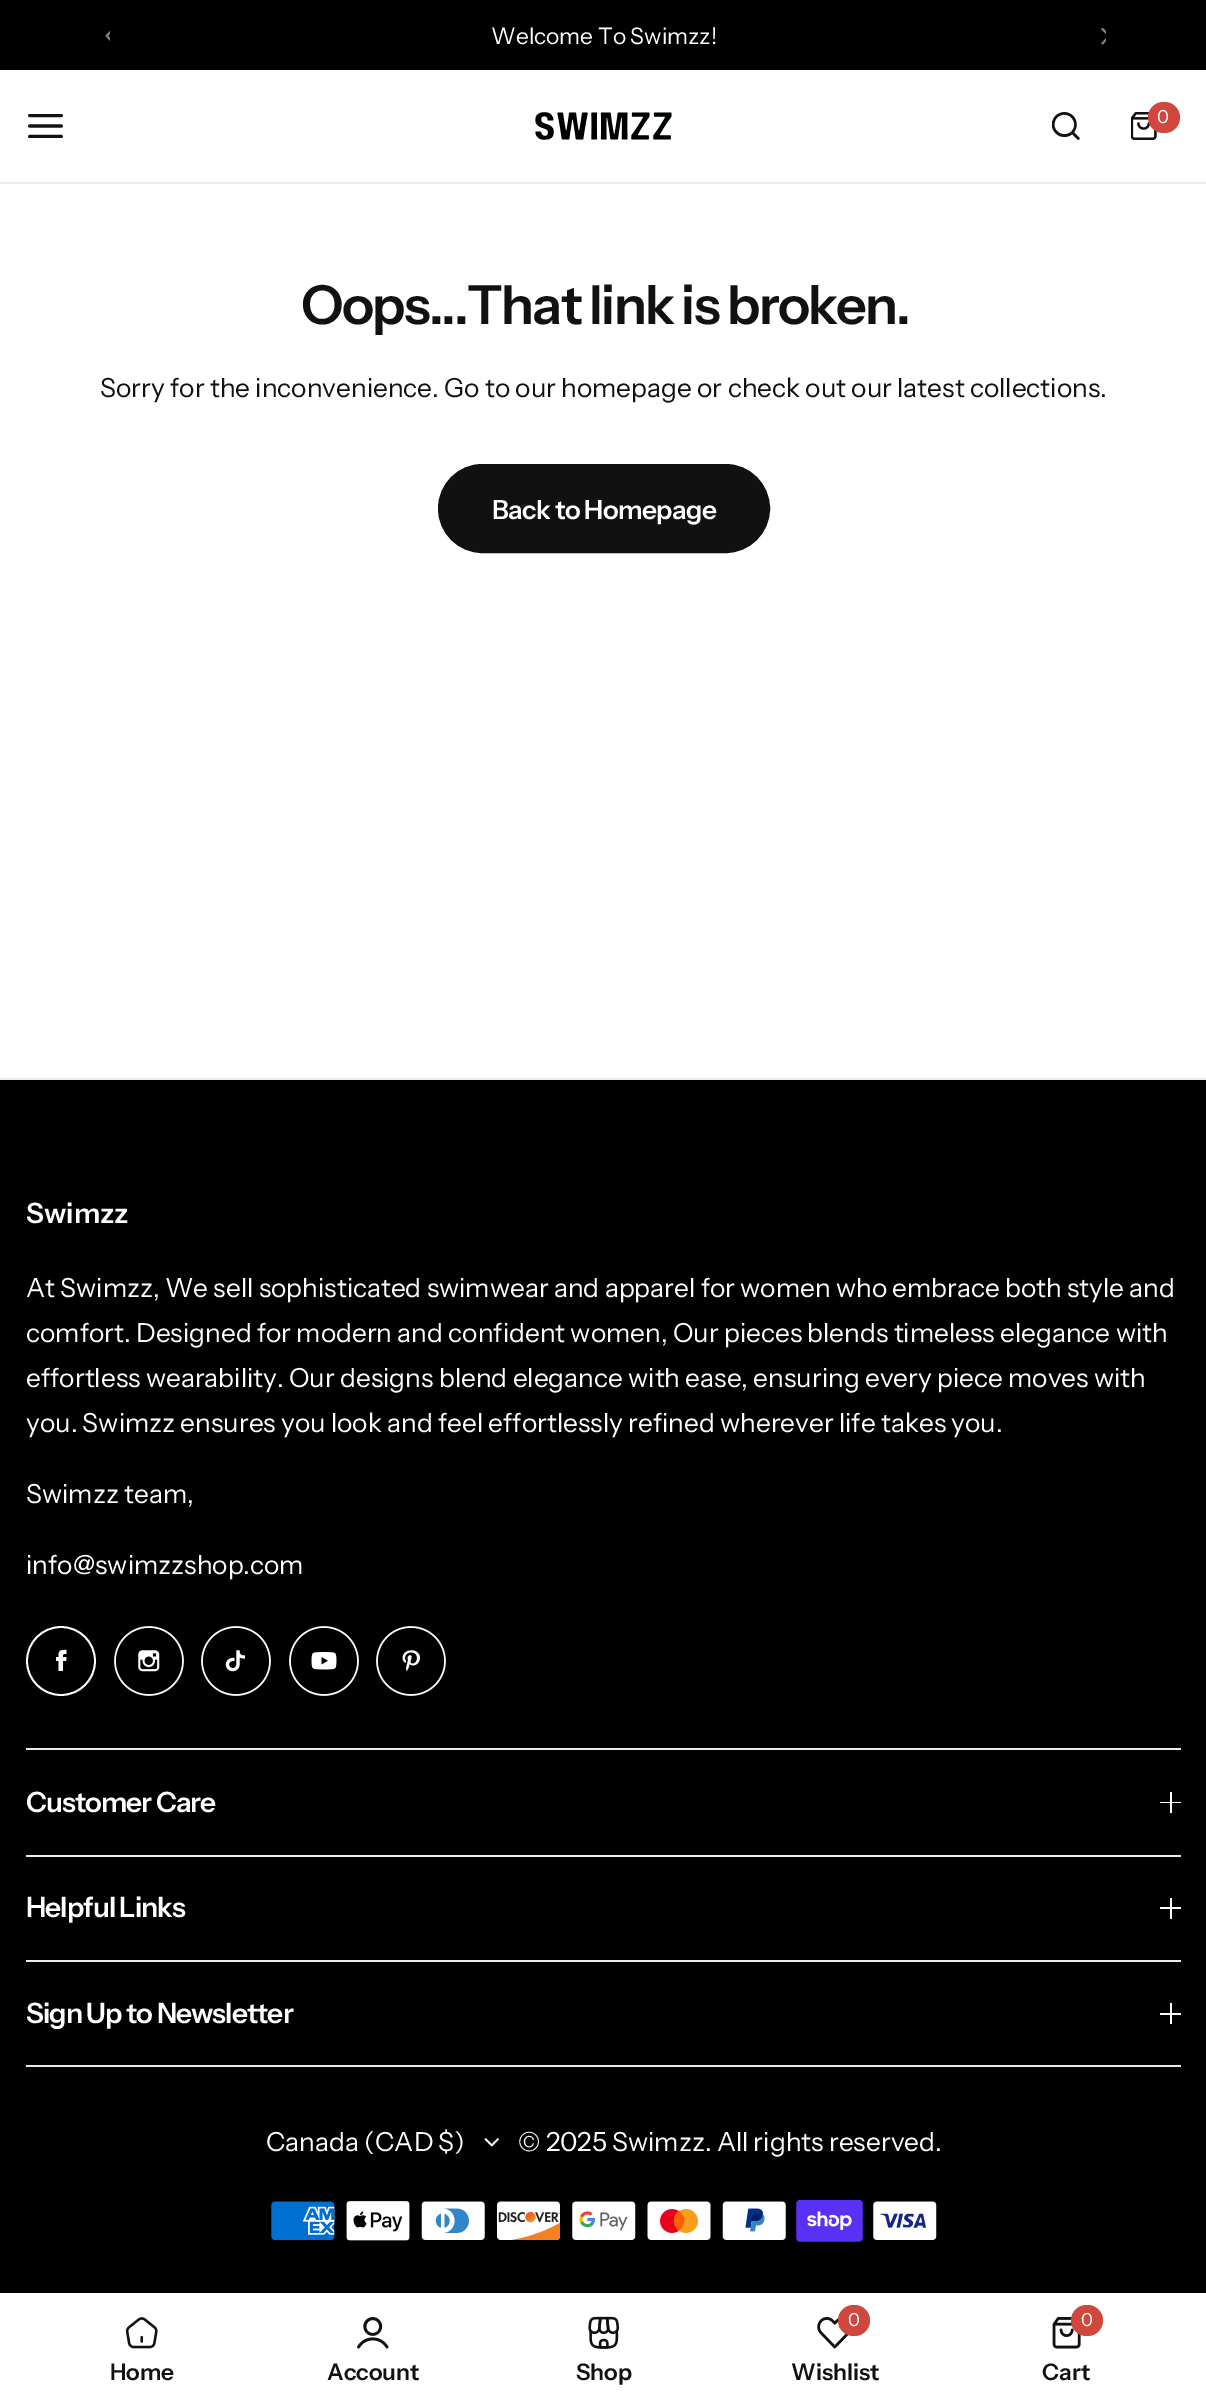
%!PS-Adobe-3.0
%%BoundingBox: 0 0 1206 2408
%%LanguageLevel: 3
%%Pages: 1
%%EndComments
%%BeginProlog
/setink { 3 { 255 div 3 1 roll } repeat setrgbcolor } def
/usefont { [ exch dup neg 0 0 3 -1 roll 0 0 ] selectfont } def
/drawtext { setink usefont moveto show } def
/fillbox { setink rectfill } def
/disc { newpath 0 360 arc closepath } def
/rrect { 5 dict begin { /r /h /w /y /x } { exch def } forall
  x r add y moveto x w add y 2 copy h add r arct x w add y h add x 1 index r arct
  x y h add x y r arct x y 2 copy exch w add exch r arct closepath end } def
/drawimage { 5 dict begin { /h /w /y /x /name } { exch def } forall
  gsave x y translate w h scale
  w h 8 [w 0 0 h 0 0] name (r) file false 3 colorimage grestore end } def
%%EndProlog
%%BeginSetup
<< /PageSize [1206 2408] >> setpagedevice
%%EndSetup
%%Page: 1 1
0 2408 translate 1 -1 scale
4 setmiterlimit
0 0 1206 2408 255 255 255 fillbox
0 0 1206 70 0 0 0 fillbox
(Welcome To Swimzz!) 491 44 /InstrumentSans-Regular 22.75 255 255 255 drawtext
(assets/img1.rgb) 105 30 5 11 drawimage
(assets/img2.rgb) 1101 28 5 17 drawimage
0 182 1206 2 235 235 235 fillbox
(assets/img3.rgb) 28 114 35 24 drawimage
(assets/img4.rgb) 535 112 137 28 drawimage
(assets/img5.rgb) 1052 112 28 28 drawimage
(assets/img6.rgb) 1131 112 26 28 drawimage
208 71 62 setink
1148 102 32 31 15.5 rrect fill
(0) 1157 123 /InstrumentSans-Regular 18 255 255 255 drawtext
/InstrumentSans-SemiBold 53.75 usefont
17 17 17 setink
301 324 moveto -1.8 0 (Oops...That link is broken.) ashow
(Sorry for the inconvenience. Go to our homepage or check out our latest collections.) 100 397 /InstrumentSans-Regular 26.25 17 17 17 drawtext
439 465 330 87 43.5 rrect gsave fill grestore
2 setlinewidth
stroke
/InstrumentSans-SemiBold 26.25 usefont
255 255 255 setink
492 519 moveto -0.6 0 (Back to Homepage) ashow
0 1080 1206 1213 0 0 0 fillbox
0 1078 1206 2 235 235 235 fillbox
26 1748 1155 2 235 235 235 fillbox
(Swimzz) 26 1223 /InstrumentSans-SemiBold 28 255 255 255 drawtext
(At Swimzz, We sell sophisticated swimwear and apparel for women who embrace both style and) 26 1297 /InstrumentSans-Regular 26.25 255 255 255 drawtext
(comfort. Designed for modern and confident women, Our pieces blends timeless elegance with) 26 1342 /InstrumentSans-Regular 26.25 255 255 255 drawtext
(effortless wearability. Our designs blend elegance with ease, ensuring every piece moves with) 26 1387 /InstrumentSans-Regular 26.25 255 255 255 drawtext
(you. Swimzz ensures you look and feel effortlessly refined wherever life takes you.) 26 1432 /InstrumentSans-Regular 26.25 255 255 255 drawtext
(Swimzz team,) 26 1503 /InstrumentSans-Regular 26.25 255 255 255 drawtext
(info@swimzzshop.com) 26 1574 /InstrumentSans-Regular 26.25 255 255 255 drawtext
1.8 setlinewidth
61 1661 34 disc stroke
58.5 1655 moveto 58.5 1657 lineto 56 1657 lineto 56 1661 lineto 58.5 1661 lineto 58.5 1671 lineto 63 1671 lineto 63 1661 lineto 66 1661 lineto 66.5 1657 lineto 63 1657 lineto 63 1653.5 62.5 1654 66.5 1654 curveto 66.5 1650 lineto 62.5 1650 58.5 1649.5 58.5 1655 curveto closepath fill
(assets/img7.rgb) 114 1626 70 70 drawimage
(assets/img8.rgb) 201 1626 70 70 drawimage
(assets/img9.rgb) 289 1626 70 70 drawimage
(assets/img10.rgb) 376 1626 70 70 drawimage
26 1855 1155 2 235 235 235 fillbox
/InstrumentSans-SemiBold 28 usefont
255 255 255 setink
26 1812 moveto -0.95 0 (Customer Care) ashow
1170 1792 2 21 255 255 255 fillbox
1160 1802 21 1 255 255 255 fillbox
26 1960 1155 2 235 235 235 fillbox
255 255 255 setink
26 1917 moveto -0.95 0 (Helpful Links) ashow
1170 1898 2 21 255 255 255 fillbox
1160 1907 21 2 255 255 255 fillbox
26 2023 moveto -0.95 0 (Sign Up to Newsletter) ashow
1170 2003 2 21 255 255 255 fillbox
1160 2013 21 2 255 255 255 fillbox
26 2065 1155 2 235 235 235 fillbox
(Canada \(CAD $\)) 266 2151 /InstrumentSans-Regular 26.25 255 255 255 drawtext
(assets/img11.rgb) 484 2138 15 9 drawimage
(© 2025 Swimzz. All rights reserved.) 518 2151 /InstrumentSans-Regular 26.25 255 255 255 drawtext
(assets/img12.rgb) 271 2201 64 39 drawimage
(assets/img13.rgb) 346 2201 64 40 drawimage
(assets/img14.rgb) 421 2201 64 39 drawimage
(assets/img15.rgb) 497 2201 64 39 drawimage
(assets/img16.rgb) 572 2201 64 39 drawimage
(assets/img17.rgb) 647 2201 64 39 drawimage
(assets/img18.rgb) 722 2201 64 39 drawimage
(assets/img19.rgb) 796 2200 67 42 drawimage
(assets/img20.rgb) 873 2201 64 39 drawimage
(assets/img21.rgb) 125 2317 33 32 drawimage
(Home) 110 2380 /InstrumentSans-SemiBold 22.75 17 17 17 drawtext
(assets/img22.rgb) 357 2317 32 32 drawimage
(Account) 327 2380 /InstrumentSans-SemiBold 22.75 17 17 17 drawtext
(assets/img23.rgb) 588 2316 32 33 drawimage
(Shop) 576 2380 /InstrumentSans-SemiBold 22.75 17 17 17 drawtext
(assets/img24.rgb) 817 2317 32 32 drawimage
208 71 62 setink
838 2305 32 31 15.5 rrect fill
(0) 848 2326 /InstrumentSans-Regular 18 255 255 255 drawtext
(Wishlist) 791 2380 /InstrumentSans-SemiBold 22.75 17 17 17 drawtext
(assets/img25.rgb) 1052 2317 29 32 drawimage
208 71 62 setink
1071 2305 32 31 15.5 rrect fill
(0) 1081 2326 /InstrumentSans-Regular 18 255 255 255 drawtext
(Cart) 1042 2380 /InstrumentSans-SemiBold 22.75 17 17 17 drawtext
showpage
%%EOF
